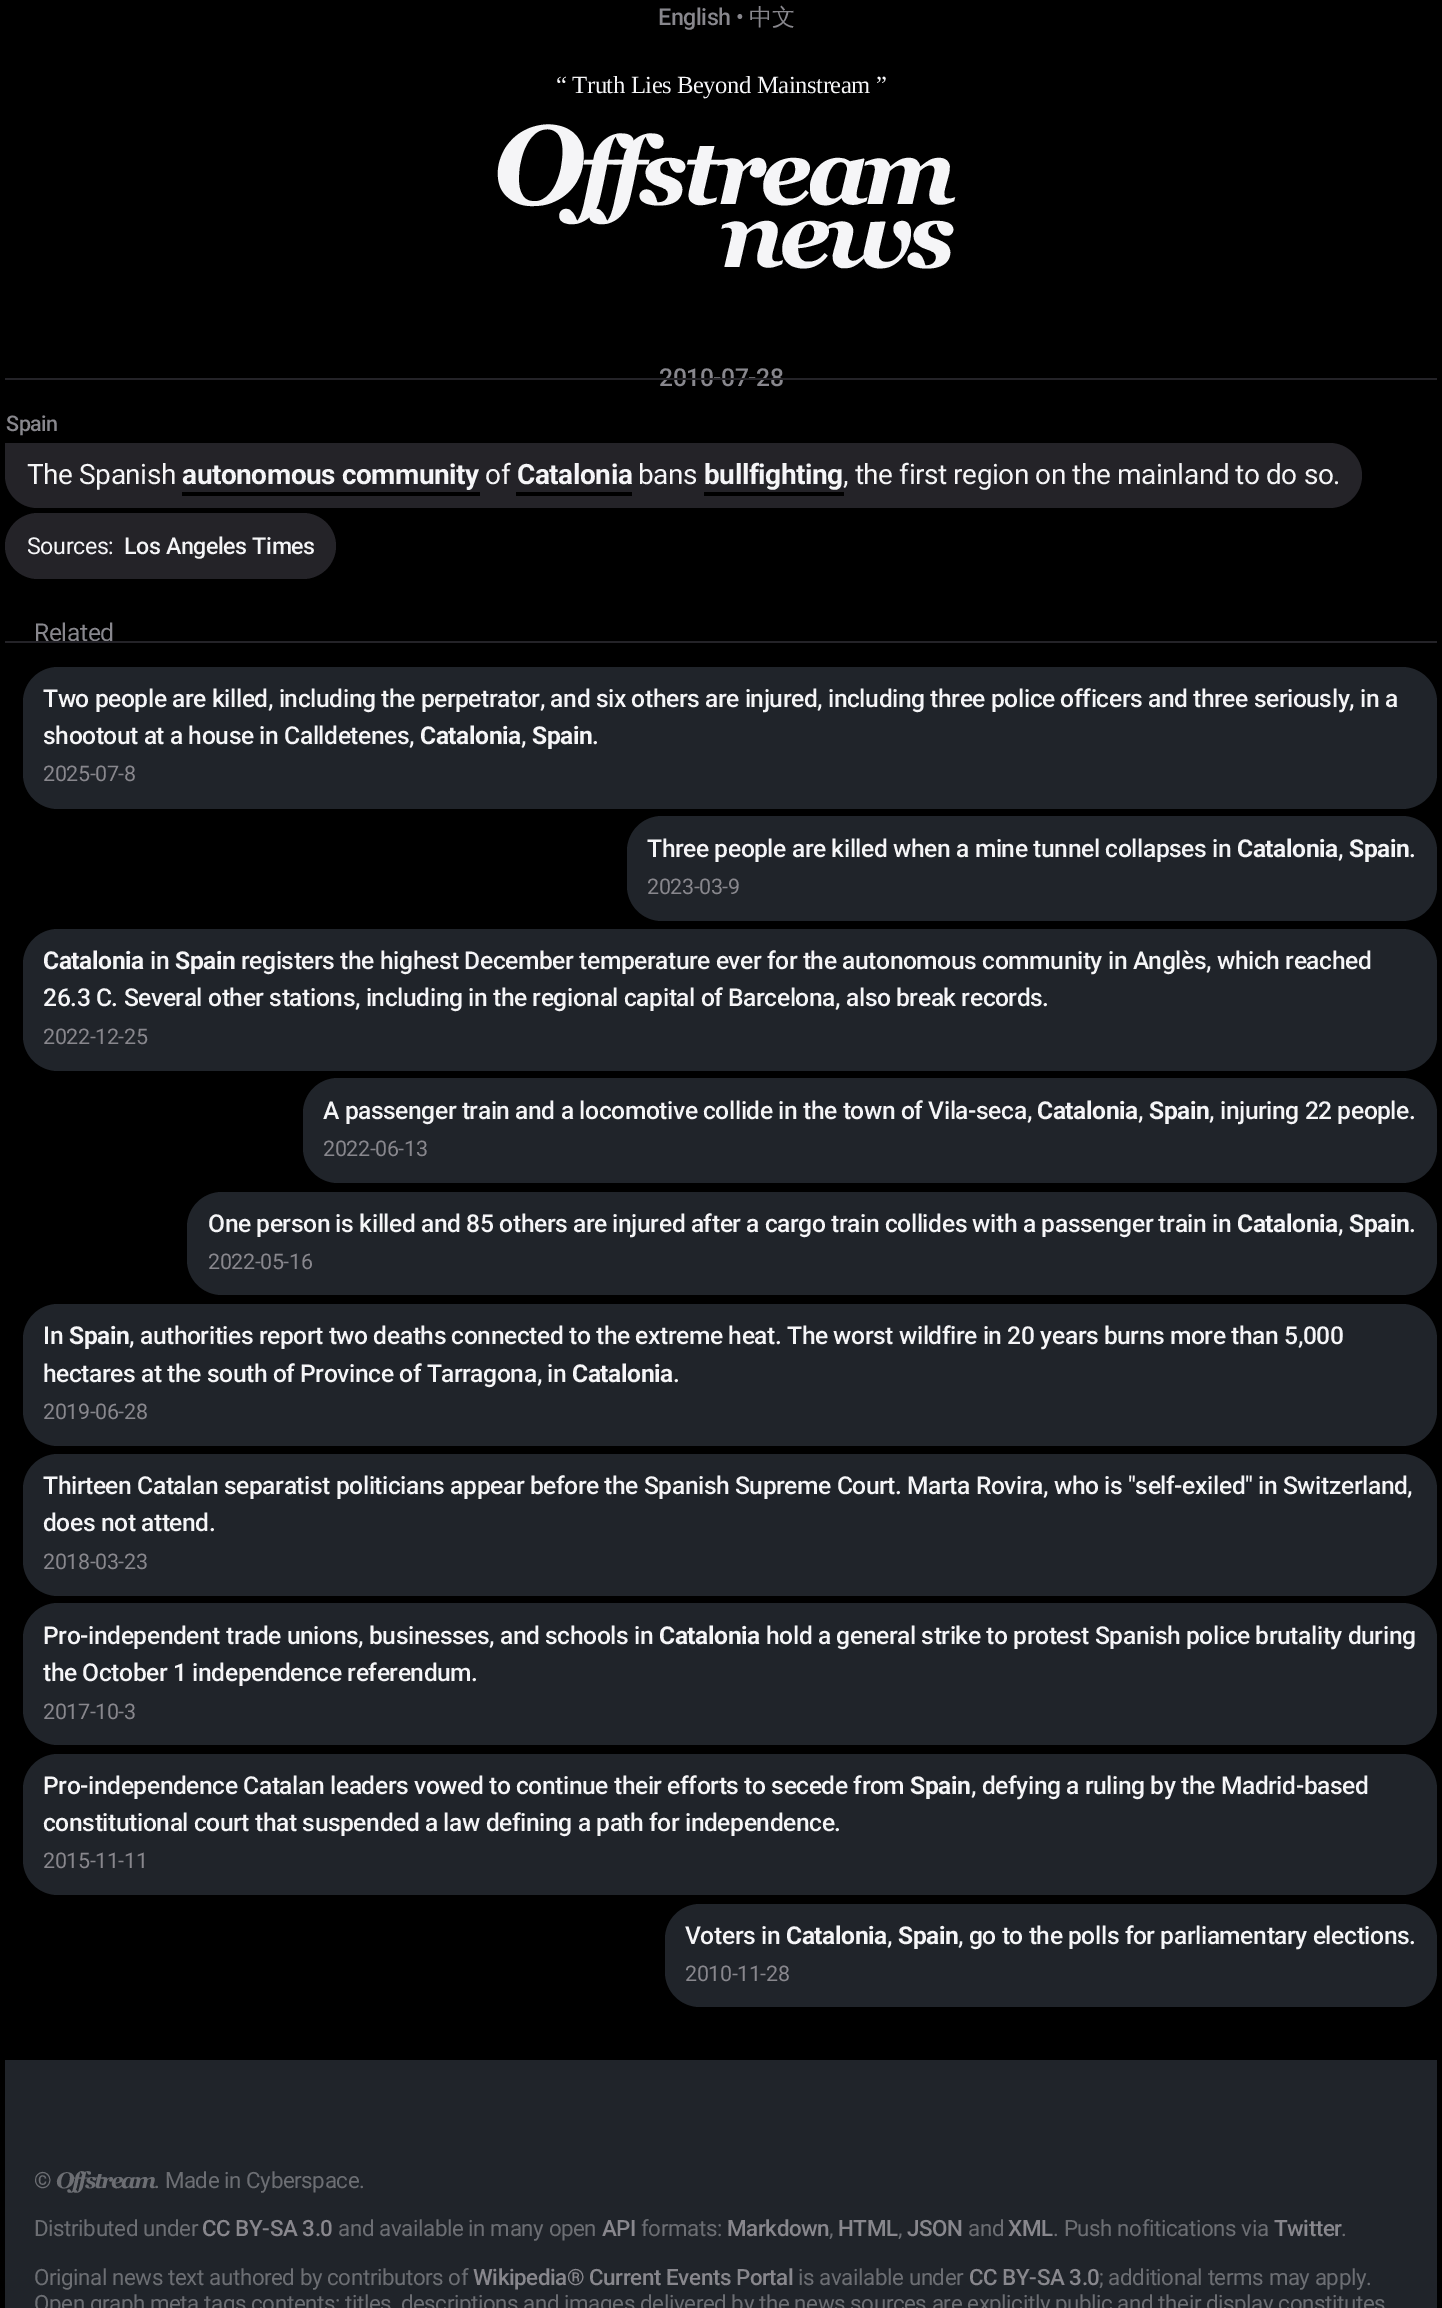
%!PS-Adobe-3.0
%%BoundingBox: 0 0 1442 2308
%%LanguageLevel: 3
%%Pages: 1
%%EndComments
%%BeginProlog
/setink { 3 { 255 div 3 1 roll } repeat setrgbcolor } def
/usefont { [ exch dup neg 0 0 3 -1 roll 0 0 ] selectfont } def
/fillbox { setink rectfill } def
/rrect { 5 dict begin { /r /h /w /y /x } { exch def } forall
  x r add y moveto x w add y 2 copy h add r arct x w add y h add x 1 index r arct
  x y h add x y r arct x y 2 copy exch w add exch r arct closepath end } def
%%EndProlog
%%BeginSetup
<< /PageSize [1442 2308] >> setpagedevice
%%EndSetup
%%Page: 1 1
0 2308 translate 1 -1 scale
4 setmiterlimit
0 0 1442 2308 0 0 0 fillbox
/Roboto-Medium 23.25 usefont
136 135 141 setink
658 25 moveto -0.44 0 (English) ashow
/Roboto-Regular 23.25 usefont
736 25 moveto -0.44 0 (•) ashow
/WenQuanYiZenHei-Medium 23.25 usefont
749 25 moveto -0.44 0 (中文) ashow
/LiberationSerif-Regular 24.65 usefont
245 245 247 setink
556 93 moveto -0.44 0 (“ Truth Lies Beyond Mainstream ”) ashow
/Georgia-BoldItalic 112 usefont
493 204 moveto -5.5 0 (O) ashow
/Georgia-BoldItalic 93.5 usefont
579 204 moveto -5.5 0 (ffstream) ashow
720 267 moveto -5.5 0 (news) ashow
/Roboto-Medium 24.65 usefont
136 135 141 setink
659 386 moveto -0.44 0 (2010-07-28) ashow
5 378 1432 2 36 35 40 fillbox
/Roboto-Medium 21.5 usefont
136 135 141 setink
6 431 moveto -0.44 0 (Spain) ashow
36 35 40 setink
5 443 moveto 1329.5 443 lineto 1347.5 443 1362 457.5 1362 475.5 curveto 1362 493.5 1347.5 508 1329.5 508 curveto 37.5 508 lineto 19.5 508 5 493.5 5 475.5 curveto closepath fill
/Roboto-Regular 28 usefont
245 245 247 setink
27 484 moveto -0.44 0 (The Spanish) ashow
/Roboto-Bold 28 usefont
182 484 moveto -0.44 0 (autonomous community) ashow
182 492 298 4 0 0 0 fillbox
/Roboto-Regular 28 usefont
245 245 247 setink
485 484 moveto -0.44 0 (of) ashow
/Roboto-Bold 28 usefont
517 484 moveto -0.44 0 (Catalonia) ashow
516 492 116 4 0 0 0 fillbox
/Roboto-Regular 28 usefont
245 245 247 setink
638 484 moveto -0.44 0 (bans) ashow
/Roboto-Bold 28 usefont
704 484 moveto -0.44 0 (bullfighting) ashow
704 492 140 4 0 0 0 fillbox
/Roboto-Regular 28 usefont
245 245 247 setink
843 484 moveto -0.44 0 (, the first region on the mainland to do so.) ashow
36 35 40 setink
5 513 331 66 33 rrect fill
/Roboto-Regular 23.25 usefont
245 245 247 setink
27 554 moveto -0.44 0 (Sources:) ashow
/Roboto-Medium 23.25 usefont
124 554 moveto -0.44 0 (Los Angeles Times) ashow
/Roboto-Regular 24.65 usefont
136 135 141 setink
34 641 moveto -0.44 0 (Related) ashow
5 641 1432 2 36 35 40 fillbox
32 36 42 setink
23 667 1414 142 35 rrect fill
/Roboto-Medium 24.65 usefont
245 245 247 setink
43 707 moveto -0.44 0 (Two people are killed, including the perpetrator, and six others are injured, including three police officers and three seriously, in a) ashow
43 744 moveto -0.44 0 (shootout at a house in Calldetenes,) ashow
/Roboto-Bold 24.65 usefont
420 744 moveto -0.44 0 (Catalonia) ashow
/Roboto-Medium 24.65 usefont
521 744 moveto -0.44 0 (,) ashow
/Roboto-Bold 24.65 usefont
532 744 moveto -0.44 0 (Spain) ashow
/Roboto-Medium 24.65 usefont
592 744 moveto -0.44 0 (.) ashow
/Roboto-Regular 21.5 usefont
136 135 141 setink
43 781 moveto -0.44 0 (2025-07-8) ashow
32 36 42 setink
627 816 810 105 35 rrect fill
/Roboto-Medium 24.65 usefont
245 245 247 setink
647 857 moveto -0.44 0 (Three people are killed when a mine tunnel collapses in) ashow
/Roboto-Bold 24.65 usefont
1237 857 moveto -0.44 0 (Catalonia) ashow
/Roboto-Medium 24.65 usefont
1338 857 moveto -0.44 0 (,) ashow
/Roboto-Bold 24.65 usefont
1349 857 moveto -0.44 0 (Spain) ashow
/Roboto-Medium 24.65 usefont
1409 857 moveto -0.44 0 (.) ashow
/Roboto-Regular 21.5 usefont
136 135 141 setink
647 894 moveto -0.44 0 (2023-03-9) ashow
32 36 42 setink
23 929 1414 142 35 rrect fill
/Roboto-Bold 24.65 usefont
245 245 247 setink
43 969 moveto -0.44 0 (Catalonia) ashow
/Roboto-Medium 24.65 usefont
150 969 moveto -0.44 0 (in) ashow
/Roboto-Bold 24.65 usefont
175 969 moveto -0.44 0 (Spain) ashow
/Roboto-Medium 24.65 usefont
241 969 moveto -0.44 0 (registers the highest December temperature ever for the autonomous community in Anglès, which reached) ashow
43 1006 moveto -0.44 0 (26.3 C. Several other stations, including in the regional capital of Barcelona, also break records.) ashow
/Roboto-Regular 21.5 usefont
136 135 141 setink
43 1044 moveto -0.44 0 (2022-12-25) ashow
32 36 42 setink
303 1078 1134 105 35 rrect fill
/Roboto-Medium 24.65 usefont
245 245 247 setink
323 1119 moveto -0.44 0 (A passenger train and a locomotive collide in the town of Vila-seca,) ashow
/Roboto-Bold 24.65 usefont
1037 1119 moveto -0.44 0 (Catalonia) ashow
/Roboto-Medium 24.65 usefont
1138 1119 moveto -0.44 0 (,) ashow
/Roboto-Bold 24.65 usefont
1149 1119 moveto -0.44 0 (Spain) ashow
/Roboto-Medium 24.65 usefont
1209 1119 moveto -0.44 0 (, injuring 22 people.) ashow
/Roboto-Regular 21.5 usefont
136 135 141 setink
323 1156 moveto -0.44 0 (2022-06-13) ashow
32 36 42 setink
187 1192 1250 103 35 rrect fill
/Roboto-Medium 24.65 usefont
245 245 247 setink
208 1232 moveto -0.44 0 (One person is killed and 85 others are injured after a cargo train collides with a passenger train in) ashow
/Roboto-Bold 24.65 usefont
1237 1232 moveto -0.44 0 (Catalonia) ashow
/Roboto-Medium 24.65 usefont
1338 1232 moveto -0.44 0 (,) ashow
/Roboto-Bold 24.65 usefont
1349 1232 moveto -0.44 0 (Spain) ashow
/Roboto-Medium 24.65 usefont
1409 1232 moveto -0.44 0 (.) ashow
/Roboto-Regular 21.5 usefont
136 135 141 setink
208 1269 moveto -0.44 0 (2022-05-16) ashow
32 36 42 setink
23 1304 1414 142 35 rrect fill
/Roboto-Medium 24.65 usefont
245 245 247 setink
43 1344 moveto -0.44 0 (In) ashow
/Roboto-Bold 24.65 usefont
69 1344 moveto -0.44 0 (Spain) ashow
/Roboto-Medium 24.65 usefont
129 1344 moveto -0.44 0 (, authorities report two deaths connected to the extreme heat. The worst wildfire in 20 years burns more than 5,000) ashow
43 1382 moveto -0.44 0 (hectares at the south of Province of Tarragona, in) ashow
/Roboto-Bold 24.65 usefont
572 1382 moveto -0.44 0 (Catalonia) ashow
/Roboto-Medium 24.65 usefont
673 1382 moveto -0.44 0 (.) ashow
/Roboto-Regular 21.5 usefont
136 135 141 setink
43 1419 moveto -0.44 0 (2019-06-28) ashow
32 36 42 setink
23 1454 1414 142 35 rrect fill
/Roboto-Medium 24.65 usefont
245 245 247 setink
43 1494 moveto -0.44 0 (Thirteen Catalan separatist politicians appear before the Spanish Supreme Court. Marta Rovira, who is "self-exiled" in Switzerland,) ashow
43 1531 moveto -0.44 0 (does not attend.) ashow
/Roboto-Regular 21.5 usefont
136 135 141 setink
43 1569 moveto -0.44 0 (2018-03-23) ashow
32 36 42 setink
23 1603 1414 142 35 rrect fill
/Roboto-Medium 24.65 usefont
245 245 247 setink
43 1644 moveto -0.44 0 (Pro-independent trade unions, businesses, and schools in) ashow
/Roboto-Bold 24.65 usefont
659 1644 moveto -0.44 0 (Catalonia) ashow
/Roboto-Medium 24.65 usefont
766 1644 moveto -0.44 0 (hold a general strike to protest Spanish police brutality during) ashow
43 1681 moveto -0.44 0 (the October 1 independence referendum.) ashow
/Roboto-Regular 21.5 usefont
136 135 141 setink
43 1719 moveto -0.44 0 (2017-10-3) ashow
32 36 42 setink
23 1754 1414 141 35 rrect fill
/Roboto-Medium 24.65 usefont
245 245 247 setink
43 1794 moveto -0.44 0 (Pro-independence Catalan leaders vowed to continue their efforts to secede from) ashow
/Roboto-Bold 24.65 usefont
910 1794 moveto -0.44 0 (Spain) ashow
/Roboto-Medium 24.65 usefont
971 1794 moveto -0.44 0 (, defying a ruling by the Madrid-based) ashow
43 1831 moveto -0.44 0 (constitutional court that suspended a law defining a path for independence.) ashow
/Roboto-Regular 21.5 usefont
136 135 141 setink
43 1868 moveto -0.44 0 (2015-11-11) ashow
32 36 42 setink
665 1904 772 103 35 rrect fill
/Roboto-Medium 24.65 usefont
245 245 247 setink
685 1944 moveto -0.44 0 (Voters in) ashow
/Roboto-Bold 24.65 usefont
786 1944 moveto -0.44 0 (Catalonia) ashow
/Roboto-Medium 24.65 usefont
887 1944 moveto -0.44 0 (,) ashow
/Roboto-Bold 24.65 usefont
898 1944 moveto -0.44 0 (Spain) ashow
/Roboto-Medium 24.65 usefont
958 1944 moveto -0.44 0 (, go to the polls for parliamentary elections.) ashow
/Roboto-Regular 21.5 usefont
136 135 141 setink
685 1981 moveto -0.44 0 (2010-11-28) ashow
5 2060 1432 248 32 36 42 fillbox
/Roboto-Regular 22.4 usefont
108 110 115 setink
34 2188 moveto -0.44 0 (©) ashow
/Georgia-BoldItalic 22.4 usefont
56 2188 moveto -2.25 0 (Offstream) ashow
/Roboto-Regular 22.4 usefont
154 2188 moveto -0.44 0 (. Made in Cyberspace.) ashow
34 2236 moveto -0.44 0 (Distributed under) ashow
/Roboto-Medium 22.4 usefont
136 135 141 setink
202 2236 moveto -0.44 0 (CC BY-SA 3.0) ashow
/Roboto-Regular 22.4 usefont
108 110 115 setink
338 2236 moveto -0.44 0 (and available in many open) ashow
/Roboto-Medium 22.4 usefont
136 135 141 setink
602 2236 moveto -0.44 0 (API) ashow
/Roboto-Regular 22.4 usefont
108 110 115 setink
641 2236 moveto -0.44 0 (formats:) ashow
/Roboto-Medium 22.4 usefont
136 135 141 setink
727 2236 moveto -0.44 0 (Markdown) ashow
/Roboto-Regular 22.4 usefont
108 110 115 setink
829 2236 moveto -0.44 0 (,) ashow
/Roboto-Medium 22.4 usefont
136 135 141 setink
838 2236 moveto -0.44 0 (HTML) ashow
/Roboto-Regular 22.4 usefont
108 110 115 setink
898 2236 moveto -0.44 0 (,) ashow
/Roboto-Medium 22.4 usefont
136 135 141 setink
907 2236 moveto -0.44 0 (JSON) ashow
/Roboto-Regular 22.4 usefont
108 110 115 setink
968 2236 moveto -0.44 0 (and) ashow
/Roboto-Medium 22.4 usefont
136 135 141 setink
1008 2236 moveto -0.44 0 (XML) ashow
/Roboto-Regular 22.4 usefont
108 110 115 setink
1053 2236 moveto -0.44 0 (. Push nofitications via) ashow
/Roboto-Medium 22.4 usefont
136 135 141 setink
1274 2236 moveto -0.44 0 (Twitter) ashow
/Roboto-Regular 22.4 usefont
108 110 115 setink
1341 2236 moveto -0.44 0 (.) ashow
34 2285 moveto -0.44 0 (Original news text authored by contributors of) ashow
/Roboto-Medium 22.4 usefont
136 135 141 setink
473 2285 moveto -0.44 0 (Wikipedia® Current Events Portal) ashow
/Roboto-Regular 22.4 usefont
108 110 115 setink
798 2285 moveto -0.44 0 (is available under) ashow
/Roboto-Medium 22.4 usefont
136 135 141 setink
969 2285 moveto -0.44 0 (CC BY-SA 3.0) ashow
/Roboto-Regular 22.4 usefont
108 110 115 setink
1099 2285 moveto -0.44 0 (; additional terms may apply.) ashow
34 2311 moveto -0.44 0 (Open graph meta tags contents: titles, descriptions and images delivered by the news sources are explicitly public and their display constitutes) ashow
showpage
%%EOF
